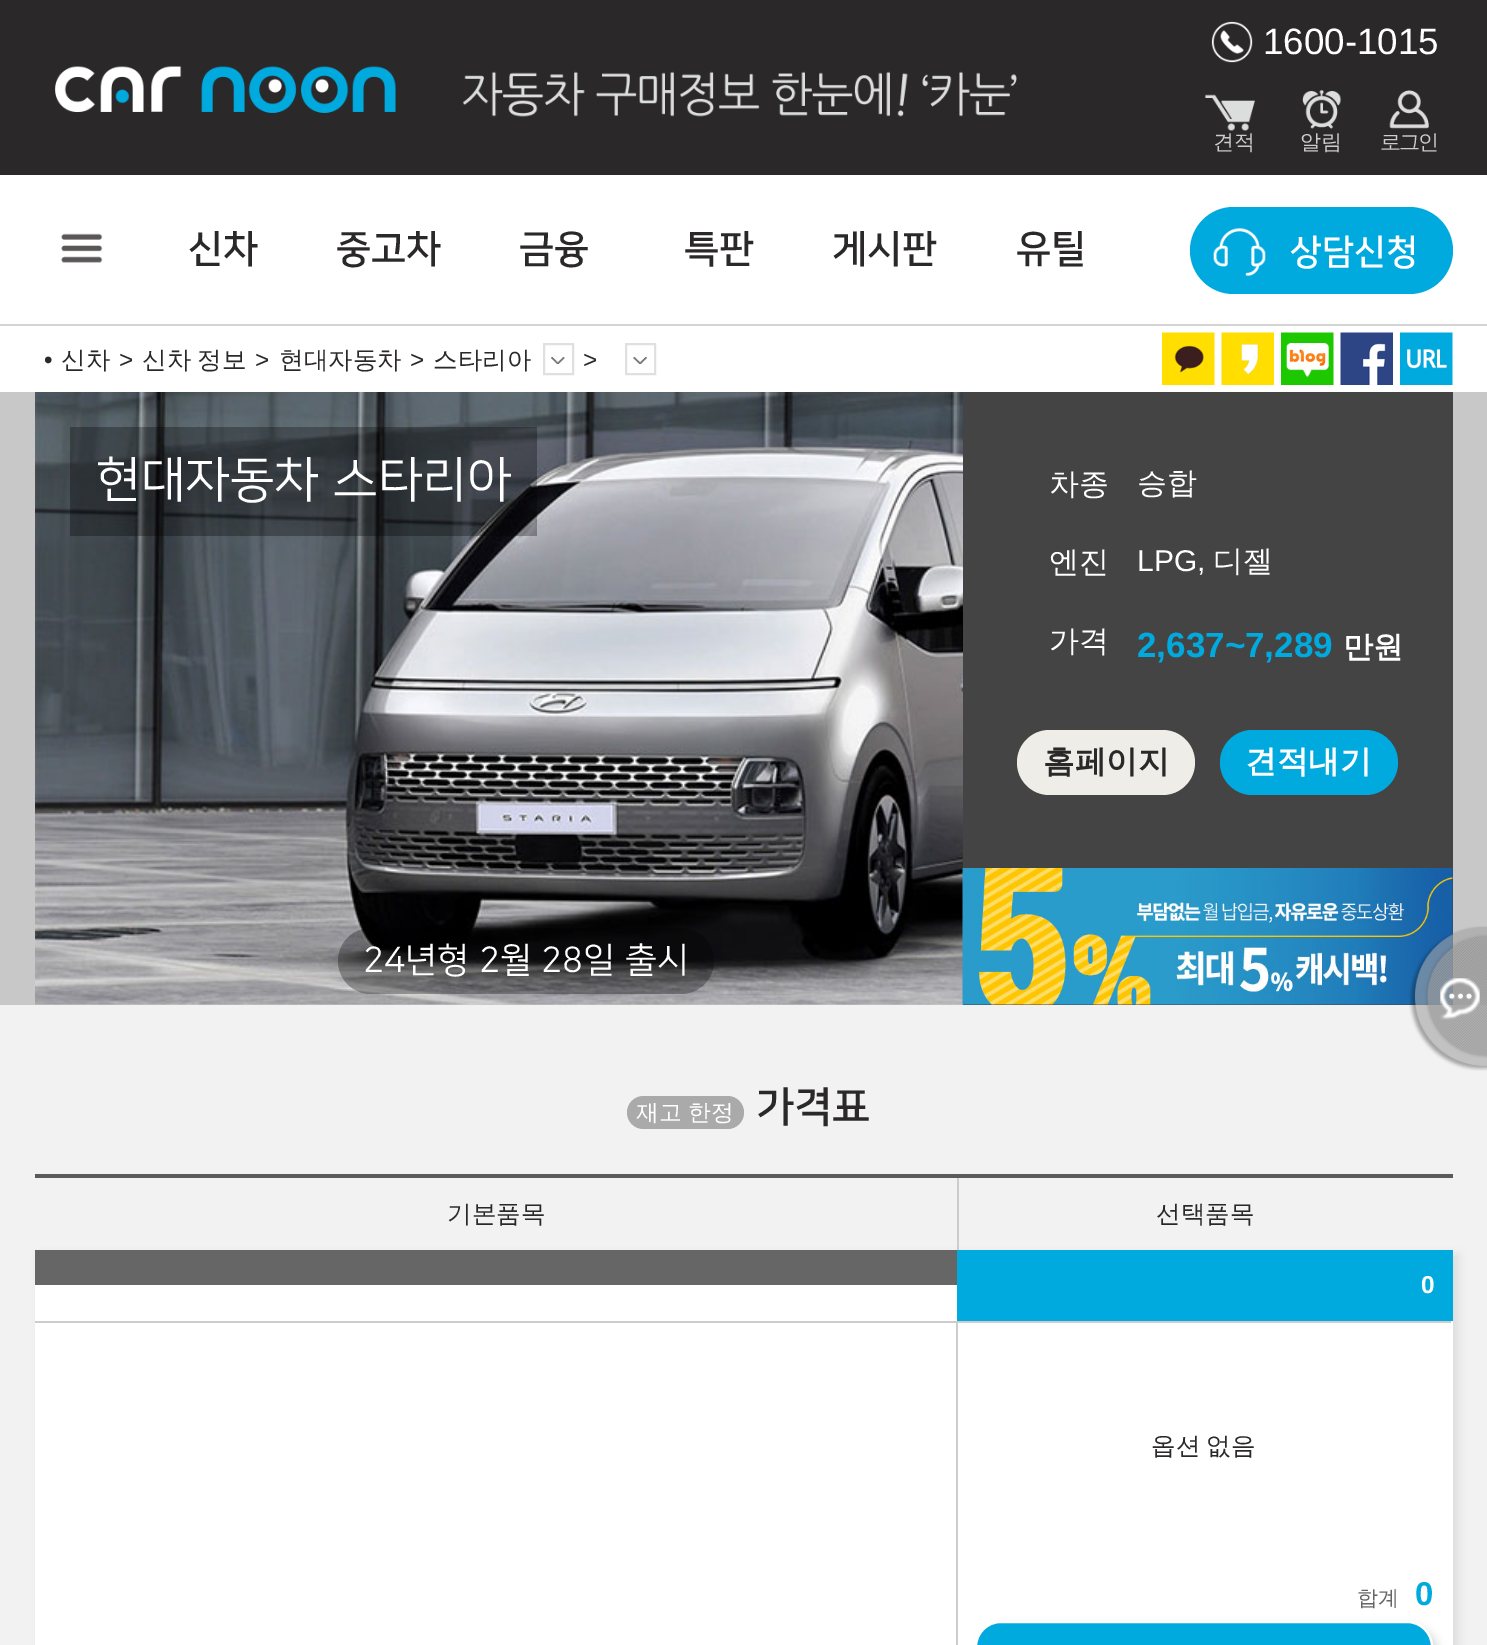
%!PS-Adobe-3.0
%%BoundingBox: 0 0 1487 1645
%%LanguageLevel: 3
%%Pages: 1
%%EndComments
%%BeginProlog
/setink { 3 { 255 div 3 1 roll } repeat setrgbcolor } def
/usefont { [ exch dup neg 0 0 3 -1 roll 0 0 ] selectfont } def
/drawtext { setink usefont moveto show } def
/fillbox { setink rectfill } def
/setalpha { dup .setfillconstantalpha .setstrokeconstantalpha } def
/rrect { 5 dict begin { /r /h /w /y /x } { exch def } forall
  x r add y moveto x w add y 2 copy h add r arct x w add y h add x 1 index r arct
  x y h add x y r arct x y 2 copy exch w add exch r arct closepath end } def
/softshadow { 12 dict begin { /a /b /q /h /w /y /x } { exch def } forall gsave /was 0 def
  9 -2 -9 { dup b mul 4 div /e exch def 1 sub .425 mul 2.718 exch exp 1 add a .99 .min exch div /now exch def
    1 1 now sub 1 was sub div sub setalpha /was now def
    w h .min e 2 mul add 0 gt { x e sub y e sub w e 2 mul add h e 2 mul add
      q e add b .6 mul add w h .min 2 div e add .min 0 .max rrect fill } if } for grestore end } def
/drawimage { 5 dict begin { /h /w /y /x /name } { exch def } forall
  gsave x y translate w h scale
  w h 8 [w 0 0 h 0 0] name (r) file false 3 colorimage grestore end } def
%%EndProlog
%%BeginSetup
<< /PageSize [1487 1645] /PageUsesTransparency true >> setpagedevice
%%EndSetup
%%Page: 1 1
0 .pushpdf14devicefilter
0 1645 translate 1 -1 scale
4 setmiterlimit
0 0 1487 1645 255 255 255 fillbox
0 0 1487 175 42 40 41 fillbox
(assets/img1.rgb) 1211 21 42 42 drawimage
(1600-1015) 1263 54 /LiberationSans-Regular 36.75 255 255 255 drawtext
(assets/img2.rgb) 55 66 341 47 drawimage
(assets/img3.rgb) 462 71 555 46 drawimage
(assets/img4.rgb) 1204 94 51 37 drawimage
(견적) 1213 149 /WenQuanYiZenHei-Medium 21 204 204 204 drawtext
(assets/img5.rgb) 1302 90 39 39 drawimage
(알림) 1300 149 /WenQuanYiZenHei-Medium 21 204 204 204 drawtext
(assets/img6.rgb) 1389 90 40 39 drawimage
1380 149 moveto -2 0 (로그인) ashow
0 324 1487 2 212 212 212 fillbox
(assets/img7.rgb) 61 233 42 30 drawimage
(신차) 188 261 /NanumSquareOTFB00-Bold 38.5 42 40 41 drawtext
(중고차) 336 261 /NanumSquareOTFB00-Bold 38.5 42 40 41 drawtext
(금융) 519 261 /NanumSquareOTFB00-Bold 38.5 42 40 41 drawtext
(특판) 684 261 /NanumSquareOTFB00-Bold 38.5 42 40 41 drawtext
(게시판) 832 261 /NanumSquareOTFB00-Bold 38.5 42 40 41 drawtext
(유틸) 1016 261 /NanumSquareOTFB00-Bold 38.5 42 40 41 drawtext
0 170 222 setink
1190 207 263 87 43.5 rrect fill
(assets/img8.rgb) 1213 228 53 48 drawimage
(상담신청) 1290 263 /NanumSquareOTFB00-Bold 35 255 255 255 drawtext
(•) 44 368 /LiberationSans-Regular 24.5 42 40 41 drawtext
(신차) 61 368 /WenQuanYiZenHei-Medium 24.5 42 40 41 drawtext
(>) 119 368 /LiberationSans-Regular 24.5 42 40 41 drawtext
/WenQuanYiZenHei-Medium 24.5 usefont
142 368 moveto -1 0 32 (신차 정보) widthshow
(>) 255 368 /LiberationSans-Regular 24.5 42 40 41 drawtext
(현대자동차) 279 368 /WenQuanYiZenHei-Medium 24.5 42 40 41 drawtext
(>) 410 368 /LiberationSans-Regular 24.5 42 40 41 drawtext
(스타리아) 433 368 /WenQuanYiZenHei-Medium 24.5 42 40 41 drawtext
(assets/img9.rgb) 551 357 14 7 drawimage
224 224 224 setink
2 setlinewidth
544 344 29 30 rectstroke
(>) 583 368 /LiberationSans-Regular 24.5 42 40 41 drawtext
(assets/img10.rgb) 633 357 14 7 drawimage
224 224 224 setink
626 344 29 30 rectstroke
(assets/img11.rgb) 1162 332 53 53 drawimage
(assets/img12.rgb) 1221 332 53 53 drawimage
(assets/img13.rgb) 1281 332 53 53 drawimage
(assets/img14.rgb) 1340 332 53 53 drawimage
(assets/img15.rgb) 1400 332 53 53 drawimage
0 392 1487 613 200 200 200 fillbox
(assets/img16.rgb) 35 392 928 613 drawimage
0.3 setalpha
70 427 467 109 0 0 0 fillbox
1 setalpha
(현대자동차) 96 495 /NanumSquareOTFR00-Regular 49 255 255 255 drawtext
(스타리아) 333 495 /NanumSquareOTFR00-Regular 49 255 255 255 drawtext
963 392 490 613 68 68 68 fillbox
(차종) 1049 494 /WenQuanYiZenHei-Medium 30 255 255 255 drawtext
(승합) 1137 493 /WenQuanYiZenHei-Medium 30 255 255 255 drawtext
(엔진) 1049 572 /WenQuanYiZenHei-Medium 30 255 255 255 drawtext
(LPG,) 1137 571 /LiberationSans-Regular 30 255 255 255 drawtext
(디젤) 1213 571 /WenQuanYiZenHei-Medium 30 255 255 255 drawtext
(가격) 1049 651 /WenQuanYiZenHei-Medium 30 255 255 255 drawtext
(2,637~7,289) 1137 657 /LiberationSans-Bold 35 0 170 222 drawtext
(만원) 1343 657 /WenQuanYiZenHei-Bold 30 255 255 255 drawtext
239 237 232 setink
1017 730 178 65 32.5 rrect fill
(홈페이지) 1043 772 /WenQuanYiZenHei-Bold 31.5 42 40 41 drawtext
0 170 222 setink
1220 730 178 65 32.5 rrect fill
(견적내기) 1245 772 /WenQuanYiZenHei-Bold 31.5 255 255 255 drawtext
0.3 setalpha
0 0 0 setink
338 928 376 66 33 rrect fill
1 setalpha
(24년형) 363 971 /NanumSquareOTFR00-Regular 35 255 255 255 drawtext
(2월) 479 971 /NanumSquareOTFR00-Regular 35 255 255 255 drawtext
(28일) 541 971 /NanumSquareOTFR00-Regular 35 255 255 255 drawtext
(출시) 625 971 /NanumSquareOTFR00-Regular 35 255 255 255 drawtext
(assets/img17.rgb) 962 868 491 137 drawimage
0 1005 1487 640 242 242 242 fillbox
170 170 170 setink
627 1096 117 33 16.5 rrect fill
(재고 한정) 636 1120 /WenQuanYiZenHei-Medium 22.75 255 255 255 drawtext
(가격표) 756 1120 /NanumSquareOTFB00-Bold 42 42 40 41 drawtext
35 1174 1418 4 90 90 90 fillbox
(기본품목) 447 1222 /WenQuanYiZenHei-Medium 24.5 42 40 41 drawtext
221 221 221 setink
40 1255 1418 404 0 4.5 1 softshadow
957 1178 2 72 204 204 204 fillbox
(선택품목) 1156 1222 /WenQuanYiZenHei-Medium 24.5 42 40 41 drawtext
35 1285 1418 360 255 255 255 fillbox
35 1250 922 35 102 102 102 fillbox
957 1250 496 71 0 170 222 fillbox
(0) 1421 1293 /LiberationSans-Bold 24.5 255 255 255 drawtext
35 1321 1416 2 204 204 204 fillbox
956 1321 2 324 204 204 204 fillbox
/WenQuanYiZenHei-Medium 24.5 usefont
42 40 41 setink
1151 1454 moveto -1 0 32 (옵션 없음) widthshow
(합계) 1357 1605 /WenQuanYiZenHei-Medium 21 102 102 102 drawtext
(0) 1415 1605 /LiberationSans-Bold 33 0 170 222 drawtext
221 221 221 setink
980 1626 459 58 26 4.5 1 softshadow
0 170 222 setink
976 1622 456 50 25 rrect gsave fill grestore
255 255 255 setink
stroke
(assets/img18.rgb) 1409 926 78 145 drawimage
.poppdf14devicefilter showpage
%%EOF
